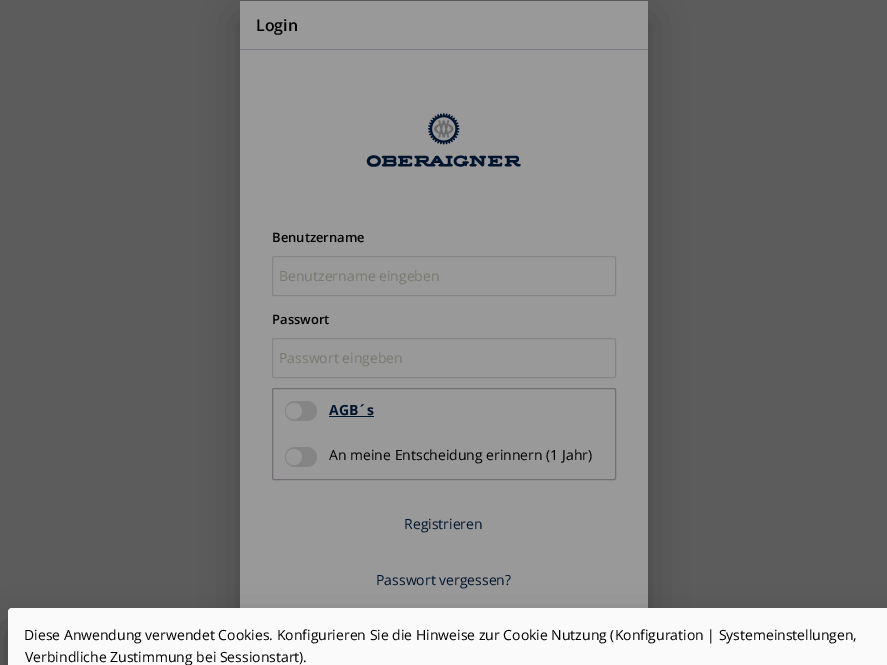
%!PS-Adobe-3.0
%%BoundingBox: 0 0 887 665
%%LanguageLevel: 3
%%Pages: 1
%%EndComments
%%BeginProlog
/setink { 3 { 255 div 3 1 roll } repeat setrgbcolor } def
/usefont { [ exch dup neg 0 0 3 -1 roll 0 0 ] selectfont } def
/drawtext { setink usefont moveto show } def
/fillbox { setink rectfill } def
/setalpha { dup .setfillconstantalpha .setstrokeconstantalpha } def
/disc { newpath 0 360 arc closepath } def
/rrect { 5 dict begin { /r /h /w /y /x } { exch def } forall
  x r add y moveto x w add y 2 copy h add r arct x w add y h add x 1 index r arct
  x y h add x y r arct x y 2 copy exch w add exch r arct closepath end } def
/softshadow { 12 dict begin { /a /b /q /h /w /y /x } { exch def } forall gsave /was 0 def
  9 -2 -9 { dup b mul 4 div /e exch def 1 sub .425 mul 2.718 exch exp 1 add a .99 .min exch div /now exch def
    1 1 now sub 1 was sub div sub setalpha /was now def
    w h .min e 2 mul add 0 gt { x e sub y e sub w e 2 mul add h e 2 mul add
      q e add b .6 mul add w h .min 2 div e add .min 0 .max rrect fill } if } for grestore end } def
/drawimage { 5 dict begin { /h /w /y /x /name } { exch def } forall
  gsave x y translate w h scale
  w h 8 [w 0 0 h 0 0] name (r) file false 3 colorimage grestore end } def
%%EndProlog
%%BeginSetup
<< /PageSize [887 665] /PageUsesTransparency true >> setpagedevice
%%EndSetup
%%Page: 1 1
0 .pushpdf14devicefilter
0 665 translate 1 -1 scale
4 setmiterlimit
0 0 887 665 92 92 92 fillbox
0 0 0 setink
240 20 408 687 0 19 0.24 softshadow
240 1 408 607 153 153 153 fillbox
(Login) 256 31 /OpenSans-SemiBold 16 0 0 0 drawtext
240 49 408 1 121 122 130 fillbox
(assets/img1.rgb) 366 113 155 54 drawimage
(Benutzername) 272 242 /OpenSans-SemiBold 13 0 0 0 drawtext
133 133 133 setink
272.5 256.5 343 39 1.5 rrect stroke
(Benutzername eingeben) 279 281 /OpenSans-Regular 14 120 120 111 drawtext
(Passwort) 272 324 /OpenSans-SemiBold 13 0 0 0 drawtext
133 133 133 setink
272.5 338.5 343 39 1.5 rrect stroke
(Passwort eingeben) 279 363 /OpenSans-Regular 14 120 120 111 drawtext
115 110 115 setink
272.5 388.5 343 91 1.5 rrect stroke
133 133 133 setink
285 401 32 20 10 rrect fill
153 153 153 setink
294 411 8 disc fill
(AGB´s) 329 415 /OpenSans-Bold 14 0 21 44 drawtext
329 416 45 1 0 21 44 fillbox
133 133 133 setink
285 447 32 20 10 rrect fill
153 153 153 setink
294 457 8 disc fill
(An meine Entscheidung erinnern \(1 Jahr\)) 329 460 /OpenSans-Regular 14 0 0 0 drawtext
(Registrieren) 404 529 /OpenSans-Regular 14 0 21 44 drawtext
(Passwort vergessen?) 376 585 /OpenSans-Regular 14 0 21 44 drawtext
0 0 0 setink
8 627 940 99 4 19 0.3 softshadow
250 250 250 setink
8 608 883 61 4 rrect fill
(Diese Anwendung verwendet Cookies. Konfigurieren Sie die Hinweise zur Cookie Nutzung \(Konfiguration | Systemeinstellungen,) 24 640 /OpenSans-Regular 14 0 0 0 drawtext
(Verbindliche Zustimmung bei Sessionstart\).) 25 662 /OpenSans-Regular 14 0 0 0 drawtext
.poppdf14devicefilter showpage
%%EOF
